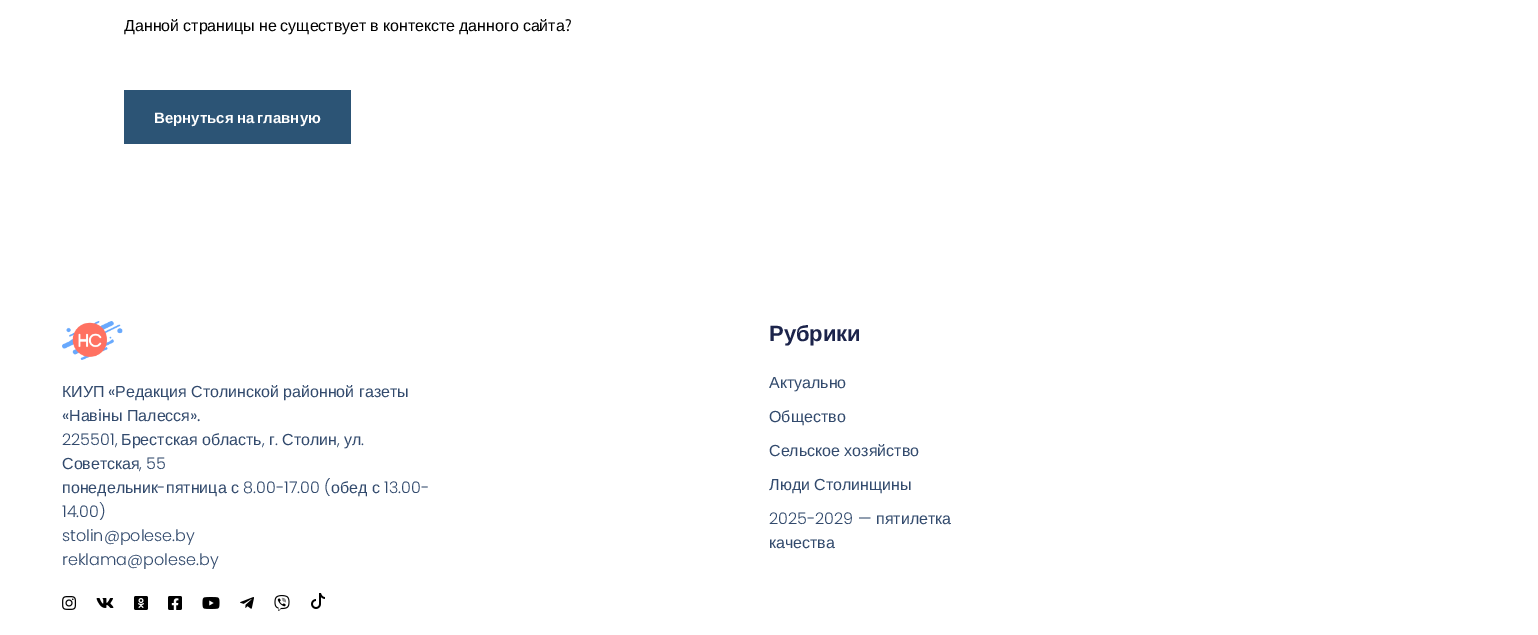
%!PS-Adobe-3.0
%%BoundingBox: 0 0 1538 635
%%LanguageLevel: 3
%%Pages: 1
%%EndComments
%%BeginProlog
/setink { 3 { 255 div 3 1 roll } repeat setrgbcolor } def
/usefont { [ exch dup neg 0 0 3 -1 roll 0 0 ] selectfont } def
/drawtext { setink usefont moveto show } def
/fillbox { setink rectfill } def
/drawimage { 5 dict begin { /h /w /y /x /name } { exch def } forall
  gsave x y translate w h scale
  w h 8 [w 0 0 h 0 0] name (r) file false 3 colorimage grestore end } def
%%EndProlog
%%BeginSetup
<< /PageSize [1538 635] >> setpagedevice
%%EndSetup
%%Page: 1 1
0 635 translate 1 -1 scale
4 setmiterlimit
0 0 1538 635 255 255 255 fillbox
/LiberationSans-Regular 16 usefont
0 0 0 setink
124 31 moveto -0.5 0 32 (Данной страницы не существует в контексте данного сайта) widthshow
(?) 565 31 /Oxygen-Regular 16 0 0 0 drawtext
124 90 227 54 44 84 117 fillbox
/LiberationSans-Bold 15 usefont
255 255 255 setink
154 123 moveto -1 0 32 (Вернуться на главную) widthshow
(assets/img1.rgb) 62 321 61 39 drawimage
(КИУП) 62 397 /LiberationSans-Regular 16 50 74 109 drawtext
(«) 108 397 /Poppins-Regular 16 50 74 109 drawtext
(Редакция Столинской районной газеты) 115 397 /LiberationSans-Regular 16 50 74 109 drawtext
(«) 62 421 /Poppins-Regular 16 50 74 109 drawtext
(Нав) 69 421 /LiberationSans-Regular 16 50 74 109 drawtext
(i) 98 421 /Poppins-Regular 16 50 74 109 drawtext
(ны Палесся) 102 421 /LiberationSans-Regular 16 50 74 109 drawtext
(».) 190 421 /Poppins-Regular 16 50 74 109 drawtext
(225501,) 62 445 /Poppins-Light 16 50 74 109 drawtext
(Брестская область) 121 445 /LiberationSans-Regular 16 50 74 109 drawtext
(,) 262 445 /Poppins-Light 16 50 74 109 drawtext
(г) 269 445 /LiberationSans-Regular 16 50 74 109 drawtext
(.) 275 445 /Poppins-Light 16 50 74 109 drawtext
(Столин) 282 445 /LiberationSans-Regular 16 50 74 109 drawtext
(,) 337 445 /Poppins-Light 16 50 74 109 drawtext
(ул) 344 445 /LiberationSans-Regular 16 50 74 109 drawtext
(.) 361 445 /Poppins-Light 16 50 74 109 drawtext
(Советская) 62 469 /LiberationSans-Regular 16 50 74 109 drawtext
(, 55) 139 469 /Poppins-Light 16 50 74 109 drawtext
(понедельник) 62 493 /LiberationSans-Regular 16 50 74 109 drawtext
(-) 157 493 /Poppins-Light 16 50 74 109 drawtext
(пятница с) 166 493 /LiberationSans-Regular 16 50 74 109 drawtext
(8.00-17.00 \() 243 493 /Poppins-Light 16 50 74 109 drawtext
(обед с) 331 493 /LiberationSans-Regular 16 50 74 109 drawtext
(13.00-) 384 493 /Poppins-Light 16 50 74 109 drawtext
(14.00\)) 62 517 /Poppins-Light 16 50 74 109 drawtext
(stolin@polese.by) 62 541 /Poppins-Light 16 50 74 109 drawtext
(reklama@polese.by) 62 565 /Poppins-Light 16 50 74 109 drawtext
(assets/img2.rgb) 62 596 15 14 drawimage
(assets/img3.rgb) 96 598 18 10 drawimage
(assets/img4.rgb) 134 596 14 14 drawimage
(assets/img5.rgb) 168 596 14 14 drawimage
(assets/img6.rgb) 202 597 18 12 drawimage
(assets/img7.rgb) 240 597 14 12 drawimage
(assets/img8.rgb) 274 595 16 16 drawimage
(assets/img9.rgb) 311 593 14 16 drawimage
(Рубрики) 769 341 /LiberationSans-Bold 22 28 36 75 drawtext
(Актуально) 769 388 /LiberationSans-Regular 16 50 74 109 drawtext
(Общество) 769 422 /LiberationSans-Regular 16 50 74 109 drawtext
(Сельское хозяйство) 769 456 /LiberationSans-Regular 16 50 74 109 drawtext
(Люди Столинщины) 769 490 /LiberationSans-Regular 16 50 74 109 drawtext
(2025-2029 —) 769 524 /Poppins-Light 16 50 74 109 drawtext
(пятилетка) 876 524 /LiberationSans-Regular 16 50 74 109 drawtext
(качества) 769 548 /LiberationSans-Regular 16 50 74 109 drawtext
showpage
%%EOF
